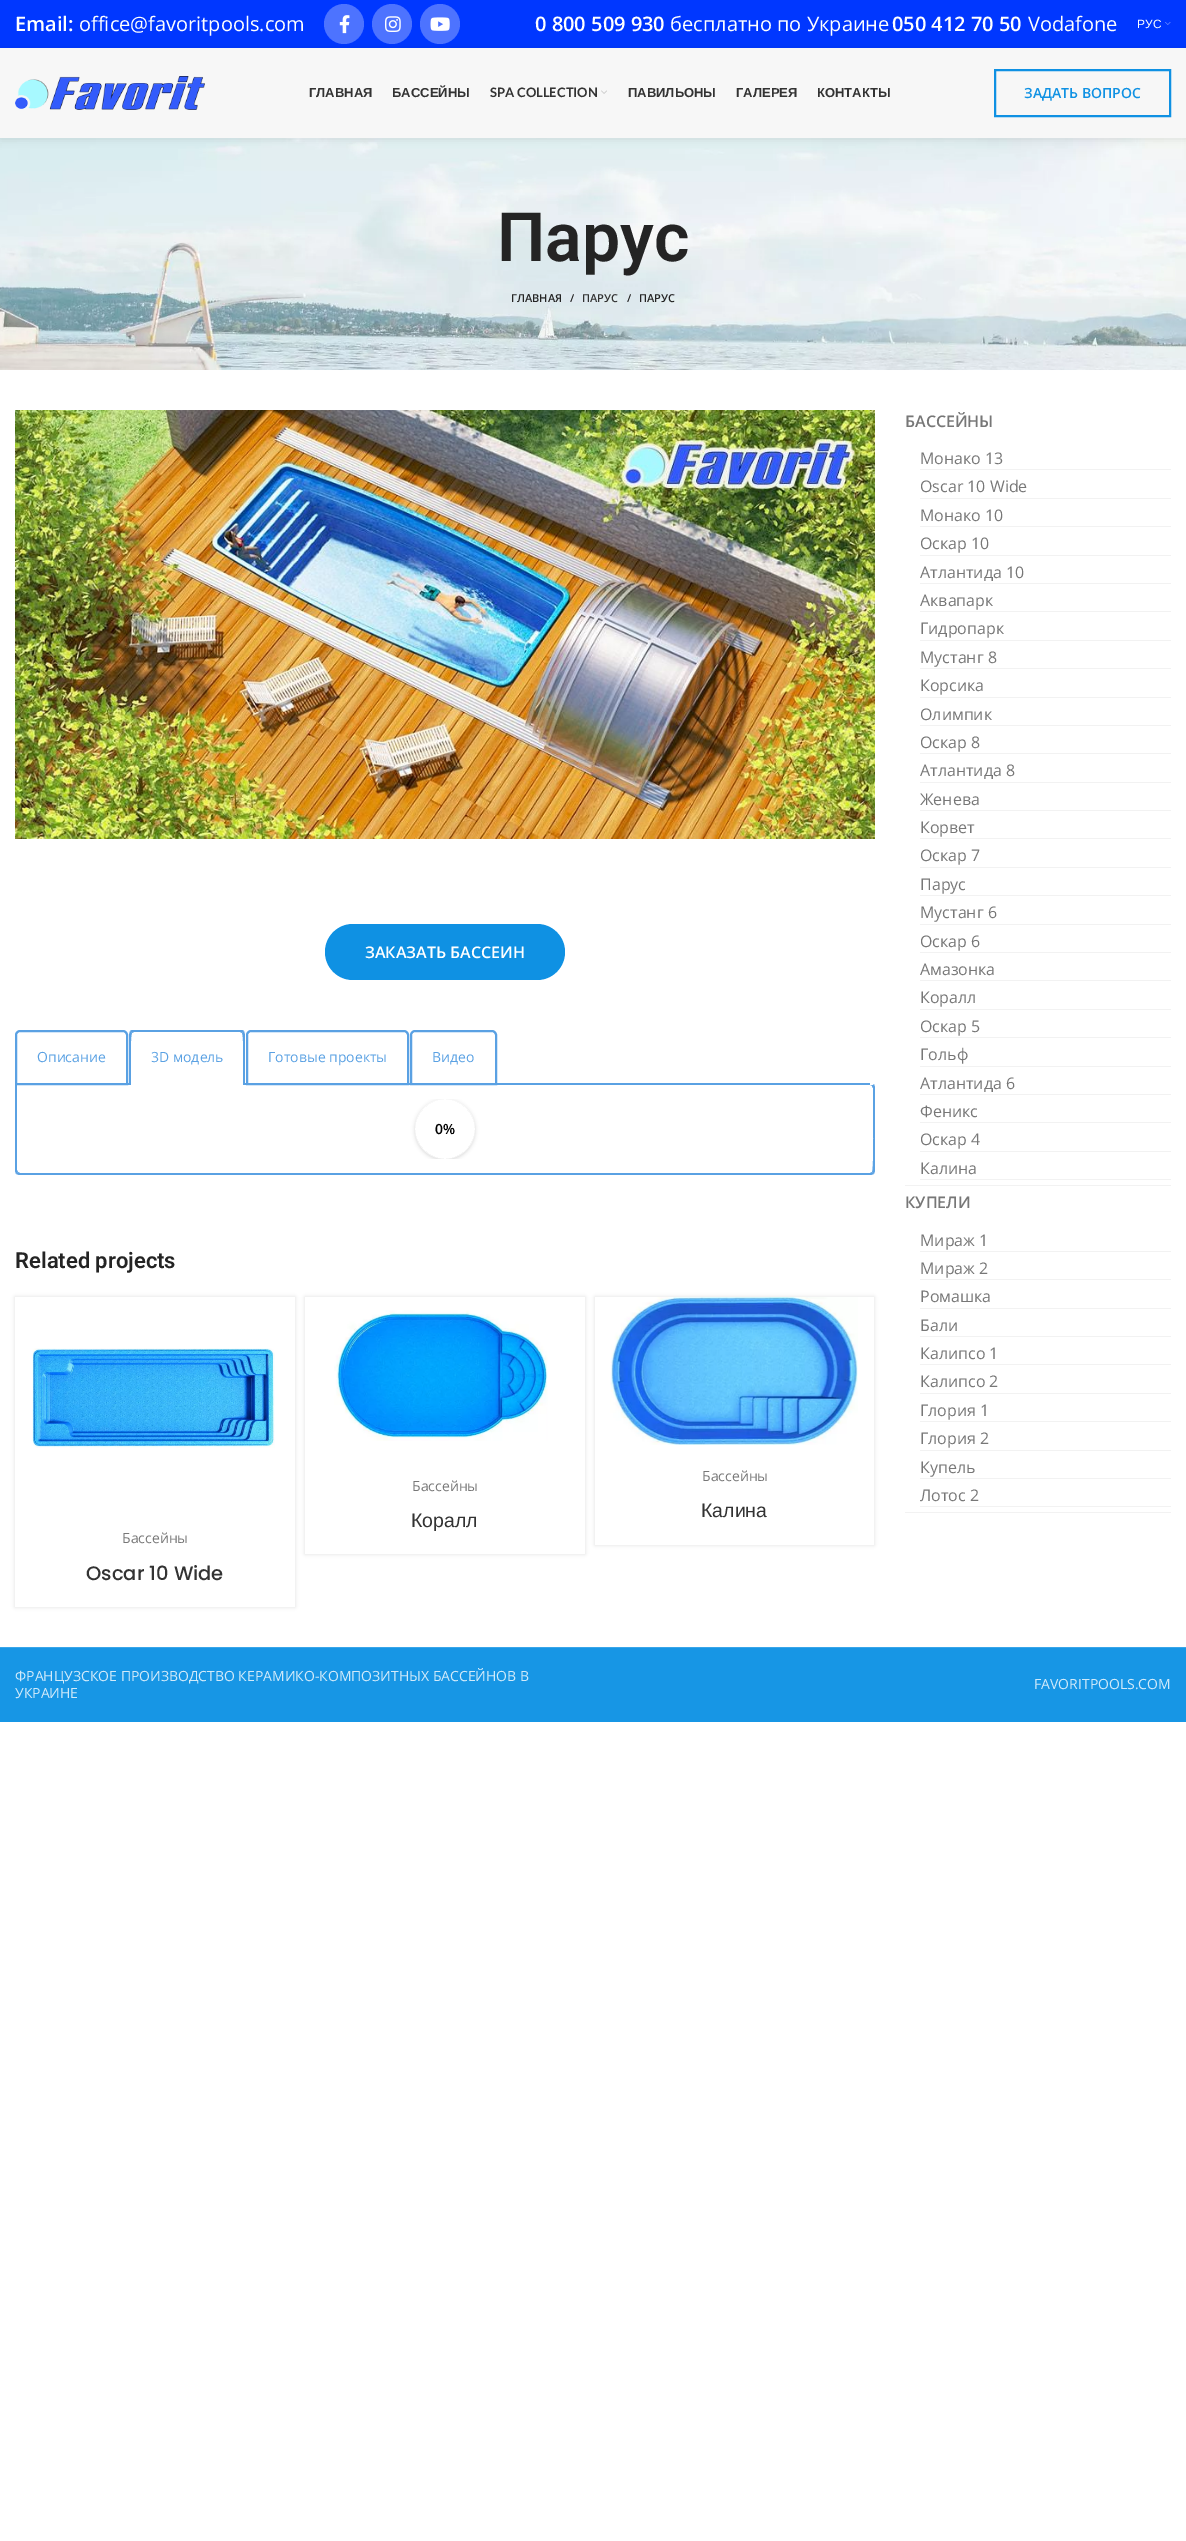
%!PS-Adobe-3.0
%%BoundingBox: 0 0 1186 2541
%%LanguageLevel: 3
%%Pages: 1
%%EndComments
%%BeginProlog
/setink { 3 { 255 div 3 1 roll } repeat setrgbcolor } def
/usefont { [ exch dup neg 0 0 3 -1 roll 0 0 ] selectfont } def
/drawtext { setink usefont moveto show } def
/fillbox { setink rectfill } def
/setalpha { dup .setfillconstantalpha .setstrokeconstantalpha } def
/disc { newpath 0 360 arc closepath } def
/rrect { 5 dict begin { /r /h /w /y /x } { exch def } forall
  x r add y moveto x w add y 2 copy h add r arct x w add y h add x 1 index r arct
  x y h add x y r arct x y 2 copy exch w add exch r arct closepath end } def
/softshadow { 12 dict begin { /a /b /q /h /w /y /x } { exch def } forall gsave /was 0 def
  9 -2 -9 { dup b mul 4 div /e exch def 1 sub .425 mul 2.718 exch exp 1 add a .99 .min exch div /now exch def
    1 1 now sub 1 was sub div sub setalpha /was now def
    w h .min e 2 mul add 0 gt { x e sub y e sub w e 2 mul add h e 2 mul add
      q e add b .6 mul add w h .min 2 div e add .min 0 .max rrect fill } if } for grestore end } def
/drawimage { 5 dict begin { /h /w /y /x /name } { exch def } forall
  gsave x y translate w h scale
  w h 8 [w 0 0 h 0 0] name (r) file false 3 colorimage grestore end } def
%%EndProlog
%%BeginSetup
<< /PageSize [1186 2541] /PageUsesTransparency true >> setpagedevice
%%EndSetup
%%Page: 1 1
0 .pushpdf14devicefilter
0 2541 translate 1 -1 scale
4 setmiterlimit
0 0 1186 2541 255 255 255 fillbox
0 0 1186 48 0 55 255 fillbox
(Email:) 15 31 /OpenSans-SemiBold 20 255 255 255 drawtext
(office@favoritpools.com) 79 31 /OpenSans-Regular 20 255 255 255 drawtext
(assets/img7.rgb) 0 138 1186 232 drawimage
0 0 0 setink
0 49 1186 90 0 4 0.1 softshadow
77 115 255 setink
344 24 20 disc fill
(assets/img1.rgb) 339 15 11 19 drawimage
392 24 20 disc fill
(assets/img2.rgb) 385 16 16 16 drawimage
440 24 20 disc fill
(assets/img3.rgb) 430 17 20 14 drawimage
(0 800 509 930) 535 31 /OpenSans-SemiBold 20 255 255 255 drawtext
(бесплатно по Украине) 670 31 /OpenSans-Regular 20 255 255 255 drawtext
(050 412 70 50) 892 31 /OpenSans-SemiBold 20 255 255 255 drawtext
(Vodafone) 1028 31 /OpenSans-Regular 20 255 255 255 drawtext
(РУС) 1137 28 /LiberationSans-Regular 12 255 255 255 drawtext
(assets/img4.rgb) 1165 22 6 3 drawimage
0 48 1186 90 247 247 247 fillbox
(assets/img5.rgb) 15 76 190 34 drawimage
(ГЛАВНАЯ) 309 97 /LiberationSans-Bold 13 51 51 51 drawtext
(БАССЕЙНЫ) 392 97 /LiberationSans-Bold 13 51 51 51 drawtext
(SPA COLLECTION) 490 97 /Lato-Bold 13 51 51 51 drawtext
(assets/img6.rgb) 601 90 6 4 drawimage
(ПАВИЛЬОНЫ) 628 97 /LiberationSans-Bold 13 51 51 51 drawtext
(ГАЛЕРЕЯ) 736 97 /LiberationSans-Bold 13 51 51 51 drawtext
(КОНТАКТЫ) 817 97 /LiberationSans-Bold 13 51 51 51 drawtext
15 145 227 setink
2 setlinewidth
995 70 175 46 rectstroke
(ЗАДАТЬ ВОПРОС) 1024 98 /OpenSans-SemiBold 14 15 145 227 drawtext
(Парус) 497 261 /Roboto-SemiBold 68 36 36 36 drawtext
(ГЛАВНАЯ) 511 302 /OpenSans-SemiBold 11 36 36 36 drawtext
(/) 570 302 /OpenSans-SemiBold 11 36 36 36 drawtext
(ПАРУС) 582 302 /OpenSans-SemiBold 11 51 51 51 drawtext
(/) 627 302 /OpenSans-SemiBold 11 36 36 36 drawtext
(ПАРУС) 639 302 /OpenSans-SemiBold 11 36 36 36 drawtext
(assets/img8.rgb) 15 410 860 429 drawimage
15 145 227 setink
325 924 240 56 28 rrect fill
(ЗАКАЗАТЬ БАССЕИН) 365 958 /OpenSans-SemiBold 16 255 255 255 drawtext
90 161 227 setink
875 1170 moveto 875 1087 lineto 874 1084 lineto 872 1086 lineto 873 1088 lineto 873 1102 lineto 873 1109 874 1170 872 1172 curveto 874 1174 lineto 874 1173 875 1172 875 1170 curveto closepath fill
20 1175 moveto 870 1175 lineto 872 1175 873 1174 874 1174 curveto 872 1172 lineto 870 1173 lineto 20 1173 lineto 18 1172 lineto 16 1174 lineto 17 1174 18 1175 20 1175 curveto closepath fill
17 1085 moveto 15 1083 lineto 15 1171 lineto 16 1174 lineto 18 1172 lineto 17 1170 lineto closepath fill
20 1031 moveto 123 1031 lineto 125 1031 127 1033 127 1035 curveto 127 1084 lineto 16 1084 lineto 16 1035 lineto 16 1033 18 1031 20 1031 curveto closepath stroke
(Описание) 37 1062 /OpenSans-Regular 14 90 161 227 drawtext
134 1030 moveto 132 1030 131 1030 130 1031 curveto 132 1033 lineto 134 1032 lineto 240 1032 lineto 242 1033 lineto 244 1031 lineto 243 1030 242 1030 240 1030 curveto closepath fill
245 1085 moveto 245 1035 lineto 245 1034 244 1032 244 1031 curveto 242 1033 lineto 244 1035 243 1077 243 1083 curveto closepath fill
129 1085 moveto 131 1083 lineto 131 1077 130 1035 132 1033 curveto 130 1031 lineto 130 1032 129 1034 129 1035 curveto closepath fill
(3D модель) 151 1062 /OpenSans-Regular 14 90 161 227 drawtext
128 1083 3 2 90 161 227 fillbox
243 1083 627 2 90 161 227 fillbox
251 1031 moveto 404 1031 lineto 406 1031 408 1033 408 1035 curveto 408 1084 lineto 247 1084 lineto 247 1035 lineto 247 1033 249 1031 251 1031 curveto closepath stroke
(Готовые проекты) 268 1062 /OpenSans-Regular 14 90 161 227 drawtext
415 1031 moveto 492 1031 lineto 494 1031 496 1033 496 1035 curveto 496 1084 lineto 411 1084 lineto 411 1035 lineto 411 1033 413 1031 415 1031 curveto closepath stroke
(Видео) 432 1062 /OpenSans-Regular 14 90 161 227 drawtext
870 1085 moveto 873 1085 lineto 873 1088 lineto 873 1086.5 871.5 1085 870 1085 curveto closepath fill
gsave
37 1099 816 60 rectclip
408 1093 moveto 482 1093 lineto 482 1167 lineto 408 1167 lineto closepath 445 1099 moveto 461.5 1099 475 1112.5 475 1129 curveto 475 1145.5 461.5 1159 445 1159 curveto 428.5 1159 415 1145.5 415 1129 curveto 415 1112.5 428.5 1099 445 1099 curveto closepath eoclip newpath
0 0 0 setink
415 1100 60 60 30 2 0.15 softshadow
grestore
0.7 setalpha
255 255 255 setink
445 1129 30 disc fill
1 setalpha
(0%) 435 1134 /OpenSans-SemiBold 14 0 0 0 drawtext
(Related projects) 15 1268 /Roboto-SemiBold 22 36 36 36 drawtext
gsave
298 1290 moveto 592 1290 lineto 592 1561 lineto 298 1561 lineto closepath 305 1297 moveto 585 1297 lineto 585 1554 lineto 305 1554 lineto closepath eoclip newpath
0 0 0 setink
305 1297 280 257 0 2 0.12 softshadow
grestore
(assets/img9.rgb) 334 1310 214 131 drawimage
(Бассейны) 412 1491 /OpenSans-Regular 14 119 119 119 drawtext
(Коралл) 411 1527 /LiberationSans-Regular 19.5 51 51 51 drawtext
gsave
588 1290 moveto 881 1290 lineto 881 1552 lineto 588 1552 lineto closepath 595 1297 moveto 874 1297 lineto 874 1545 lineto 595 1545 lineto closepath eoclip newpath
0 0 0 setink
595 1297 279 248 0 2 0.12 softshadow
grestore
(assets/img10.rgb) 610 1297 248 148 drawimage
(Бассейны) 702 1481 /OpenSans-Regular 14 119 119 119 drawtext
(Калина) 701 1517 /LiberationSans-Regular 19.5 51 51 51 drawtext
gsave
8 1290 moveto 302 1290 lineto 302 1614 lineto 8 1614 lineto closepath 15 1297 moveto 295 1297 lineto 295 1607 lineto 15 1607 lineto closepath eoclip newpath
0 0 0 setink
15 1297 280 310 0 2 0.12 softshadow
grestore
(assets/img11.rgb) 32 1348 243 100 drawimage
(Бассейны) 122 1543 /OpenSans-Regular 14 119 119 119 drawtext
(Oscar 10 Wide) 86 1580 /Poppins-Medium 19.5 51 51 51 drawtext
905 1185 266 1 242 242 242 fillbox
(БАССЕЙНЫ) 905 427 /OpenSans-SemiBold 16 119 119 119 drawtext
920 469 251 1 242 242 242 fillbox
(Монако 13) 920 464 /OpenSans-Regular 16 119 119 119 drawtext
920 498 251 1 242 242 242 fillbox
(Oscar 10 Wide) 920 492 /OpenSans-Regular 16 119 119 119 drawtext
920 526 251 1 242 242 242 fillbox
(Монако 10) 920 521 /OpenSans-Regular 16 119 119 119 drawtext
920 555 251 1 242 242 242 fillbox
(Оскар 10) 920 549 /OpenSans-Regular 16 119 119 119 drawtext
920 583 251 1 242 242 242 fillbox
(Атлантида 10) 920 578 /OpenSans-Regular 16 119 119 119 drawtext
920 611 251 1 242 242 242 fillbox
(Аквапарк) 920 606 /OpenSans-Regular 16 119 119 119 drawtext
920 640 251 1 242 242 242 fillbox
(Гидропарк) 920 634 /OpenSans-Regular 16 119 119 119 drawtext
920 668 251 1 242 242 242 fillbox
(Мустанг 8) 920 663 /OpenSans-Regular 16 119 119 119 drawtext
920 697 251 1 242 242 242 fillbox
(Корсика) 920 691 /OpenSans-Regular 16 119 119 119 drawtext
920 725 251 1 242 242 242 fillbox
(Олимпик) 920 720 /OpenSans-Regular 16 119 119 119 drawtext
920 753 251 1 242 242 242 fillbox
(Оскар 8) 920 748 /OpenSans-Regular 16 119 119 119 drawtext
920 782 251 1 242 242 242 fillbox
(Атлантида 8) 920 776 /OpenSans-Regular 16 119 119 119 drawtext
920 810 251 1 242 242 242 fillbox
(Женева) 920 805 /OpenSans-Regular 16 119 119 119 drawtext
920 838 251 1 242 242 242 fillbox
(Корвет) 920 833 /OpenSans-Regular 16 119 119 119 drawtext
920 867 251 1 242 242 242 fillbox
(Оскар 7) 920 861 /OpenSans-Regular 16 119 119 119 drawtext
920 895 251 1 242 242 242 fillbox
(Парус) 920 890 /OpenSans-Regular 16 119 119 119 drawtext
920 924 251 1 242 242 242 fillbox
(Мустанг 6) 920 918 /OpenSans-Regular 16 119 119 119 drawtext
920 952 251 1 242 242 242 fillbox
(Оскар 6) 920 947 /OpenSans-Regular 16 119 119 119 drawtext
920 980 251 1 242 242 242 fillbox
(Амазонка) 920 975 /OpenSans-Regular 16 119 119 119 drawtext
920 1009 251 1 242 242 242 fillbox
(Коралл) 920 1003 /OpenSans-Regular 16 119 119 119 drawtext
920 1037 251 1 242 242 242 fillbox
(Оскар 5) 920 1032 /OpenSans-Regular 16 119 119 119 drawtext
920 1066 251 1 242 242 242 fillbox
(Гольф) 920 1060 /OpenSans-Regular 16 119 119 119 drawtext
920 1094 251 1 242 242 242 fillbox
(Атлантида 6) 920 1089 /OpenSans-Regular 16 119 119 119 drawtext
920 1122 251 1 242 242 242 fillbox
(Феникс) 920 1117 /OpenSans-Regular 16 119 119 119 drawtext
920 1151 251 1 242 242 242 fillbox
(Оскар 4) 920 1145 /OpenSans-Regular 16 119 119 119 drawtext
920 1179 251 1 242 242 242 fillbox
(Калина) 920 1174 /OpenSans-Regular 16 119 119 119 drawtext
905 1512 266 1 242 242 242 fillbox
(КУПЕЛИ) 905 1208 /OpenSans-SemiBold 16 119 119 119 drawtext
920 1251 251 1 242 242 242 fillbox
(Мираж 1) 920 1246 /OpenSans-Regular 16 119 119 119 drawtext
920 1279 251 1 242 242 242 fillbox
(Мираж 2) 920 1274 /OpenSans-Regular 16 119 119 119 drawtext
920 1308 251 1 242 242 242 fillbox
(Ромашка) 920 1302 /OpenSans-Regular 16 119 119 119 drawtext
920 1336 251 1 242 242 242 fillbox
(Бали) 920 1331 /OpenSans-Regular 16 119 119 119 drawtext
920 1364 251 1 242 242 242 fillbox
(Калипсо 1) 920 1359 /OpenSans-Regular 16 119 119 119 drawtext
920 1393 251 1 242 242 242 fillbox
(Калипсо 2) 920 1387 /OpenSans-Regular 16 119 119 119 drawtext
920 1421 251 1 242 242 242 fillbox
(Глория 1) 920 1416 /OpenSans-Regular 16 119 119 119 drawtext
920 1450 251 1 242 242 242 fillbox
(Глория 2) 920 1444 /OpenSans-Regular 16 119 119 119 drawtext
920 1478 251 1 242 242 242 fillbox
(Купель) 920 1473 /OpenSans-Regular 16 119 119 119 drawtext
920 1506 251 1 242 242 242 fillbox
(Лотос 2) 920 1501 /OpenSans-Regular 16 119 119 119 drawtext
0 1648 1186 74 23 150 229 fillbox
0 1647 1186 1 58 166 233 fillbox
(ФРАНЦУЗСКОЕ ПРОИЗВОДСТВО КЕРАМИКО-КОМПОЗИТНЫХ БАССЕЙНОВ В) 15 1681 /OpenSans-Regular 14 209 234 250 drawtext
(УКРАИНЕ) 15 1698 /OpenSans-Regular 14 209 234 250 drawtext
(FAVORITPOOLS.COM) 1034 1689 /OpenSans-Regular 14 209 234 250 drawtext
.poppdf14devicefilter showpage
%%EOF
